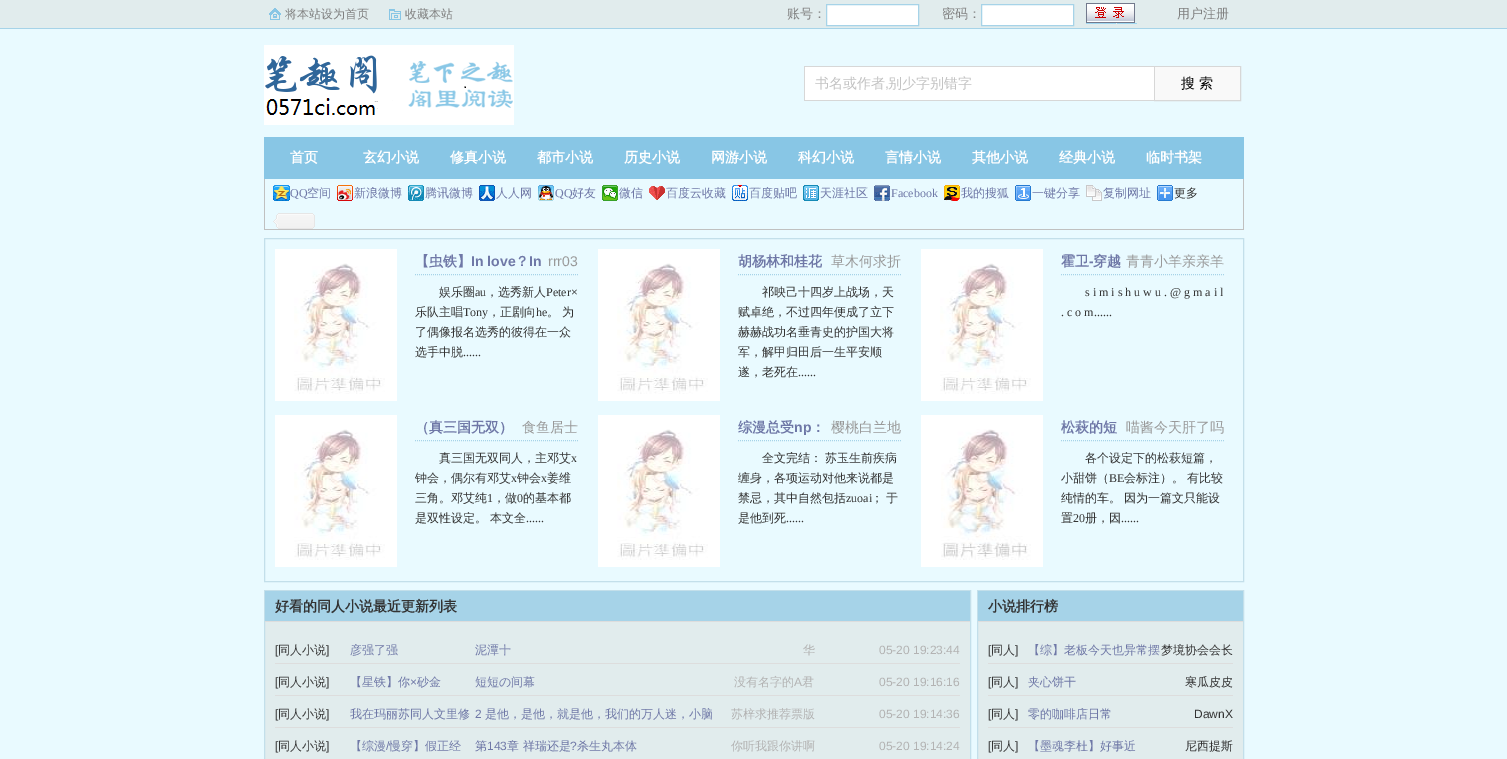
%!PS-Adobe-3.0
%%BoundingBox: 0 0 1507 759
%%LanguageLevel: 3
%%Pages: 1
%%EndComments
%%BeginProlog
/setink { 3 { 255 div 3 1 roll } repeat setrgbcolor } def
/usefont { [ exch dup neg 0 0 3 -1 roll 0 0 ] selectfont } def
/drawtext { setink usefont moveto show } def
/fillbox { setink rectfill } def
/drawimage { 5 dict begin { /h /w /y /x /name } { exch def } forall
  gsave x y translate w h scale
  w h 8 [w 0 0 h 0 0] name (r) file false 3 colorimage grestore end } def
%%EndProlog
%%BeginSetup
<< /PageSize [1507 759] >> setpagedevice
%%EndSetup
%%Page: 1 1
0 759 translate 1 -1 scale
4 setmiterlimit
0 0 1507 759 233 250 255 fillbox
0 0 1507 28 225 236 237 fillbox
0 28 1507 1 166 211 232 fillbox
(assets/img1.rgb) 269 8 12 12 drawimage
(将本站设为首页) 285 18 /WenQuanYiZenHei-Medium 12 128 128 128 drawtext
(assets/img2.rgb) 389 9 12 11 drawimage
(收藏本站) 405 18 /WenQuanYiZenHei-Medium 12 128 128 128 drawtext
(账号：) 787 18 /WenQuanYiZenHei-Medium 13 128 128 128 drawtext
255 255 255 setink
826.5 4.5 moveto 918.5 4.5 lineto 918.5 25.5 lineto 826.5 25.5 lineto closepath gsave fill grestore
166 211 232 setink
stroke
(密码：) 942 18 /WenQuanYiZenHei-Medium 13 128 128 128 drawtext
255 255 255 setink
981.5 4.5 moveto 1073.5 4.5 lineto 1073.5 25.5 lineto 981.5 25.5 lineto closepath gsave fill grestore
166 211 232 setink
stroke
(assets/img3.rgb) 1086 3 51 21 drawimage
(用户注册) 1177 18 /WenQuanYiZenHei-Medium 13 128 128 128 drawtext
(assets/img4.rgb) 264 45 250 80 drawimage
805 67 349 33 255 255 255 fillbox
804 66 350 1 215 215 215 fillbox
804 100 350 1 215 215 215 fillbox
804 66 1 35 215 215 215 fillbox
(书名或作者) 815 88 /WenQuanYiZenHei-Medium 14 195 195 195 drawtext
(,) 885 88 /LiberationSans-Regular 14 195 195 195 drawtext
(别少字别错字) 888 88 /WenQuanYiZenHei-Medium 14 195 195 195 drawtext
215 215 215 setink
1154.5 66.5 86 34 rectstroke
1155 67 85 33 249 249 249 fillbox
(搜 索) 1181 88 /WenQuanYiZenHei-Medium 14 0 0 0 drawtext
264 137 980 42 136 198 229 fillbox
(首页) 290 162 /WenQuanYiZenHei-Bold 14 255 255 255 drawtext
(玄幻小说) 363 162 /WenQuanYiZenHei-Bold 14 255 255 255 drawtext
(修真小说) 450 162 /WenQuanYiZenHei-Bold 14 255 255 255 drawtext
(都市小说) 537 162 /WenQuanYiZenHei-Bold 14 255 255 255 drawtext
(历史小说) 624 162 /WenQuanYiZenHei-Bold 14 255 255 255 drawtext
(网游小说) 711 162 /WenQuanYiZenHei-Bold 14 255 255 255 drawtext
(科幻小说) 798 162 /WenQuanYiZenHei-Bold 14 255 255 255 drawtext
(言情小说) 885 162 /WenQuanYiZenHei-Bold 14 255 255 255 drawtext
(其他小说) 972 162 /WenQuanYiZenHei-Bold 14 255 255 255 drawtext
(经典小说) 1059 162 /WenQuanYiZenHei-Bold 14 255 255 255 drawtext
(临时书架) 1146 162 /WenQuanYiZenHei-Bold 14 255 255 255 drawtext
1243 179 1 51 192 192 192 fillbox
264 229 980 1 192 192 192 fillbox
264 179 1 51 192 192 192 fillbox
(assets/img5.rgb) 273 185 17 16 drawimage
(QQ) 290 197 /LiberationSerif-Regular 12 111 120 167 drawtext
(空间) 307 197 /WenQuanYiZenHei-Medium 12 111 120 167 drawtext
(assets/img6.rgb) 337 185 16 16 drawimage
(新浪微博) 354 197 /WenQuanYiZenHei-Medium 12 111 120 167 drawtext
(assets/img7.rgb) 408 185 16 16 drawimage
(腾讯微博) 425 197 /WenQuanYiZenHei-Medium 12 111 120 167 drawtext
(assets/img8.rgb) 479 185 16 16 drawimage
(人人网) 496 197 /WenQuanYiZenHei-Medium 12 111 120 167 drawtext
(assets/img9.rgb) 538 185 16 16 drawimage
(QQ) 555 197 /LiberationSerif-Regular 12 111 120 167 drawtext
(好友) 572 197 /WenQuanYiZenHei-Medium 12 111 120 167 drawtext
(assets/img10.rgb) 602 185 16 16 drawimage
(微信) 619 197 /WenQuanYiZenHei-Medium 12 111 120 167 drawtext
(assets/img11.rgb) 649 186 16 14 drawimage
(百度云收藏) 666 197 /WenQuanYiZenHei-Medium 12 111 120 167 drawtext
(assets/img12.rgb) 732 185 16 16 drawimage
(百度贴吧) 749 197 /WenQuanYiZenHei-Medium 12 111 120 167 drawtext
(assets/img13.rgb) 803 185 16 16 drawimage
(天涯社区) 820 197 /WenQuanYiZenHei-Medium 12 111 120 167 drawtext
(assets/img14.rgb) 874 185 16 16 drawimage
(Facebook) 891 197 /LiberationSerif-Regular 12 111 120 167 drawtext
(assets/img15.rgb) 944 185 16 16 drawimage
(我的搜狐) 961 197 /WenQuanYiZenHei-Medium 12 111 120 167 drawtext
(assets/img16.rgb) 1015 185 16 16 drawimage
(一键分享) 1032 197 /WenQuanYiZenHei-Medium 12 111 120 167 drawtext
(assets/img17.rgb) 1086 185 16 16 drawimage
(复制网址) 1103 197 /WenQuanYiZenHei-Medium 12 111 120 167 drawtext
(assets/img18.rgb) 1157 185 16 16 drawimage
(更多) 1174 197 /WenQuanYiZenHei-Medium 12 51 51 51 drawtext
(assets/img19.rgb) 273 213 42 16 drawimage
195 223 234 setink
264.5 238.5 979 343 rectstroke
275 249 122 152 255 255 255 fillbox
(assets/img20.rgb) 294 263 91 131 drawimage
166 211 232 setink
[1 1] 0 setdash
415 274.5 moveto 578 274.5 lineto stroke
(【虫铁】) 415 266 /WenQuanYiZenHei-Bold 14 111 120 167 drawtext
(In love) 471 266 /LiberationSans-Bold 14 111 120 167 drawtext
(？) 515 266 /WenQuanYiZenHei-Bold 14 111 120 167 drawtext
(In) 529 266 /LiberationSans-Bold 14 111 120 167 drawtext
(rrr03) 548 266 /LiberationSans-Regular 14 153 153 153 drawtext
(娱乐圈) 439 296 /WenQuanYiZenHei-Medium 12 51 51 51 drawtext
(au) 475 296 /LiberationSerif-Regular 12 51 51 51 drawtext
(，选秀新人) 486 296 /WenQuanYiZenHei-Medium 12 51 51 51 drawtext
(Peter×) 546 296 /LiberationSerif-Regular 12 51 51 51 drawtext
(乐队主唱) 415 316 /WenQuanYiZenHei-Medium 12 51 51 51 drawtext
(Tony) 463 316 /LiberationSerif-Regular 12 51 51 51 drawtext
(，正剧向) 488 316 /WenQuanYiZenHei-Medium 12 51 51 51 drawtext
(he) 536 316 /LiberationSerif-Regular 12 51 51 51 drawtext
(。) 547 316 /WenQuanYiZenHei-Medium 12 51 51 51 drawtext
(为) 562 316 /WenQuanYiZenHei-Medium 12 51 51 51 drawtext
(了偶像报名选秀的彼得在一众) 415 336 /WenQuanYiZenHei-Medium 12 51 51 51 drawtext
(选手中脱) 415 356 /WenQuanYiZenHei-Medium 12 51 51 51 drawtext
(......) 463 356 /LiberationSerif-Regular 12 51 51 51 drawtext
598 249 122 152 255 255 255 fillbox
(assets/img20.rgb) 617 263 91 131 drawimage
166 211 232 setink
738 274.5 moveto 901 274.5 lineto stroke
(胡杨林和桂花) 738 266 /WenQuanYiZenHei-Bold 14 111 120 167 drawtext
(草木何求折) 831 266 /WenQuanYiZenHei-Medium 14 153 153 153 drawtext
(祁映己十四岁上战场，天) 762 296 /WenQuanYiZenHei-Medium 12 51 51 51 drawtext
(赋卓绝，不过四年便成了立下) 738 316 /WenQuanYiZenHei-Medium 12 51 51 51 drawtext
(赫赫战功名垂青史的护国大将) 738 336 /WenQuanYiZenHei-Medium 12 51 51 51 drawtext
(军，解甲归田后一生平安顺) 738 356 /WenQuanYiZenHei-Medium 12 51 51 51 drawtext
(遂，老死在) 738 376 /WenQuanYiZenHei-Medium 12 51 51 51 drawtext
(......) 798 376 /LiberationSerif-Regular 12 51 51 51 drawtext
921 249 122 152 255 255 255 fillbox
(assets/img20.rgb) 940 263 91 131 drawimage
166 211 232 setink
1061 274.5 moveto 1224 274.5 lineto stroke
(霍卫) 1061 266 /WenQuanYiZenHei-Bold 14 111 120 167 drawtext
(-) 1089 266 /LiberationSans-Bold 14 111 120 167 drawtext
(穿越) 1093 266 /WenQuanYiZenHei-Bold 14 111 120 167 drawtext
(青青小羊亲亲羊) 1126 266 /WenQuanYiZenHei-Medium 14 153 153 153 drawtext
(s i m i s h u w u . @ g m a i l) 1085 296 /LiberationSerif-Regular 12 51 51 51 drawtext
(. c o m......) 1061 316 /LiberationSerif-Regular 12 51 51 51 drawtext
275 415 122 152 255 255 255 fillbox
(assets/img20.rgb) 294 429 91 131 drawimage
166 211 232 setink
415 440.5 moveto 578 440.5 lineto stroke
(（真三国无双）) 415 432 /WenQuanYiZenHei-Bold 14 111 120 167 drawtext
(食鱼居士) 522 432 /WenQuanYiZenHei-Medium 14 153 153 153 drawtext
(真三国无双同人，主邓艾) 439 462 /WenQuanYiZenHei-Medium 12 51 51 51 drawtext
(x) 571 462 /LiberationSerif-Regular 12 51 51 51 drawtext
(钟会，偶尔有邓艾) 415 482 /WenQuanYiZenHei-Medium 12 51 51 51 drawtext
(x) 511 482 /LiberationSerif-Regular 12 51 51 51 drawtext
(钟会) 517 482 /WenQuanYiZenHei-Medium 12 51 51 51 drawtext
(x) 541 482 /LiberationSerif-Regular 12 51 51 51 drawtext
(姜维) 547 482 /WenQuanYiZenHei-Medium 12 51 51 51 drawtext
(三角。邓艾纯) 415 502 /WenQuanYiZenHei-Medium 12 51 51 51 drawtext
(1) 487 502 /LiberationSerif-Regular 12 51 51 51 drawtext
(，做) 493 502 /WenQuanYiZenHei-Medium 12 51 51 51 drawtext
(0) 517 502 /LiberationSerif-Regular 12 51 51 51 drawtext
(的基本都) 523 502 /WenQuanYiZenHei-Medium 12 51 51 51 drawtext
(是双性设定。) 415 522 /WenQuanYiZenHei-Medium 12 51 51 51 drawtext
(本文全) 490 522 /WenQuanYiZenHei-Medium 12 51 51 51 drawtext
(......) 526 522 /LiberationSerif-Regular 12 51 51 51 drawtext
598 415 122 152 255 255 255 fillbox
(assets/img20.rgb) 617 429 91 131 drawimage
166 211 232 setink
738 440.5 moveto 901 440.5 lineto stroke
(综漫总受) 738 432 /WenQuanYiZenHei-Bold 14 111 120 167 drawtext
(np) 794 432 /LiberationSans-Bold 14 111 120 167 drawtext
(：) 811 432 /WenQuanYiZenHei-Bold 14 111 120 167 drawtext
(樱桃白兰地) 831 432 /WenQuanYiZenHei-Medium 14 153 153 153 drawtext
(全文完结：) 762 462 /WenQuanYiZenHei-Medium 12 51 51 51 drawtext
(苏玉生前疾病) 825 462 /WenQuanYiZenHei-Medium 12 51 51 51 drawtext
gsave
738 441 163 127 rectclip
(缠身，各项运动对他来说都是) 738 482 /WenQuanYiZenHei-Medium 12 51 51 51 drawtext
grestore
(禁忌，其中自然包括) 738 502 /WenQuanYiZenHei-Medium 12 51 51 51 drawtext
(zuoai) 846 502 /LiberationSerif-Regular 12 51 51 51 drawtext
(；) 871 502 /WenQuanYiZenHei-Medium 12 51 51 51 drawtext
(于) 886 502 /WenQuanYiZenHei-Medium 12 51 51 51 drawtext
(是他到死) 738 522 /WenQuanYiZenHei-Medium 12 51 51 51 drawtext
(......) 786 522 /LiberationSerif-Regular 12 51 51 51 drawtext
921 415 122 152 255 255 255 fillbox
(assets/img21.rgb) 941 429 90 131 drawimage
166 211 232 setink
1061 440.5 moveto 1224 440.5 lineto stroke
(松萩的短) 1061 432 /WenQuanYiZenHei-Bold 14 111 120 167 drawtext
(喵酱今天肝了吗) 1126 432 /WenQuanYiZenHei-Medium 14 153 153 153 drawtext
(各个设定下的松萩短篇，) 1085 462 /WenQuanYiZenHei-Medium 12 51 51 51 drawtext
(小甜饼（) 1061 482 /WenQuanYiZenHei-Medium 12 51 51 51 drawtext
(BE) 1109 482 /LiberationSerif-Regular 12 51 51 51 drawtext
(会标注）。) 1124 482 /WenQuanYiZenHei-Medium 12 51 51 51 drawtext
(有比较) 1187 482 /WenQuanYiZenHei-Medium 12 51 51 51 drawtext
gsave
1061 441 163 127 rectclip
(纯情的车。) 1061 502 /WenQuanYiZenHei-Medium 12 51 51 51 drawtext
grestore
(因为一篇文只能设) 1124 502 /WenQuanYiZenHei-Medium 12 51 51 51 drawtext
(置) 1061 522 /WenQuanYiZenHei-Medium 12 51 51 51 drawtext
(20) 1073 522 /LiberationSerif-Regular 12 51 51 51 drawtext
(册，因) 1085 522 /WenQuanYiZenHei-Medium 12 51 51 51 drawtext
(......) 1121 522 /LiberationSerif-Regular 12 51 51 51 drawtext
265 622 705 137 225 236 237 fillbox
195 223 234 setink
[] 0 setdash
264.5 590.5 706 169 rectstroke
265 591 705 30 166 211 232 fillbox
265 621 705 1 221 221 221 fillbox
(好看的同人小说最近更新列表) 275 611 /WenQuanYiZenHei-Bold 14 51 51 51 drawtext
275 663 685 1 221 221 221 fillbox
([) 275 654 /LiberationSans-Regular 12 51 51 51 drawtext
(同人小说) 278 654 /WenQuanYiZenHei-Medium 12 51 51 51 drawtext
(]) 326 654 /LiberationSans-Regular 12 51 51 51 drawtext
(彦强了强) 350 654 /WenQuanYiZenHei-Medium 12 111 120 167 drawtext
(泥潭十) 475 654 /WenQuanYiZenHei-Medium 12 111 120 167 drawtext
(华) 803 654 /WenQuanYiZenHei-Medium 12 179 179 179 drawtext
(05-20 19:23:44) 879 654 /LiberationSans-Regular 12 179 179 179 drawtext
275 695 685 1 221 221 221 fillbox
([) 275 686 /LiberationSans-Regular 12 51 51 51 drawtext
(同人小说) 278 686 /WenQuanYiZenHei-Medium 12 51 51 51 drawtext
(]) 326 686 /LiberationSans-Regular 12 51 51 51 drawtext
(【星铁】你) 350 686 /WenQuanYiZenHei-Medium 12 111 120 167 drawtext
(×) 410 686 /LiberationSans-Regular 12 111 120 167 drawtext
(砂金) 417 686 /WenQuanYiZenHei-Medium 12 111 120 167 drawtext
(短短の间幕) 475 686 /WenQuanYiZenHei-Medium 12 111 120 167 drawtext
(没有名字的) 734 686 /WenQuanYiZenHei-Medium 12 179 179 179 drawtext
(A) 794 686 /LiberationSans-Regular 12 179 179 179 drawtext
(君) 802 686 /WenQuanYiZenHei-Medium 12 179 179 179 drawtext
(05-20 19:16:16) 879 686 /LiberationSans-Regular 12 179 179 179 drawtext
275 727 685 1 221 221 221 fillbox
([) 275 718 /LiberationSans-Regular 12 51 51 51 drawtext
(同人小说) 278 718 /WenQuanYiZenHei-Medium 12 51 51 51 drawtext
(]) 326 718 /LiberationSans-Regular 12 51 51 51 drawtext
(我在玛丽苏同人文里修) 350 718 /WenQuanYiZenHei-Medium 12 111 120 167 drawtext
(2) 475 718 /LiberationSans-Regular 12 111 120 167 drawtext
(是他，是他，就是他，我们的万人迷，小脑) 485 718 /WenQuanYiZenHei-Medium 12 111 120 167 drawtext
(苏梓求推荐票版) 731 718 /WenQuanYiZenHei-Medium 12 179 179 179 drawtext
(05-20 19:14:36) 879 718 /LiberationSans-Regular 12 179 179 179 drawtext
([) 275 750 /LiberationSans-Regular 12 51 51 51 drawtext
(同人小说) 278 750 /WenQuanYiZenHei-Medium 12 51 51 51 drawtext
(]) 326 750 /LiberationSans-Regular 12 51 51 51 drawtext
(【综漫) 350 750 /WenQuanYiZenHei-Medium 12 111 120 167 drawtext
(/) 386 750 /LiberationSans-Regular 12 111 120 167 drawtext
(慢穿】假正经) 389 750 /WenQuanYiZenHei-Medium 12 111 120 167 drawtext
(第) 475 750 /WenQuanYiZenHei-Medium 12 111 120 167 drawtext
(143) 487 750 /LiberationSans-Regular 12 111 120 167 drawtext
(章 祥瑞还是) 507 750 /WenQuanYiZenHei-Medium 12 111 120 167 drawtext
(?) 570 750 /LiberationSans-Regular 12 111 120 167 drawtext
(杀生丸本体) 577 750 /WenQuanYiZenHei-Medium 12 111 120 167 drawtext
(你听我跟你讲啊) 731 750 /WenQuanYiZenHei-Medium 12 179 179 179 drawtext
(05-20 19:14:24) 879 750 /LiberationSans-Regular 12 179 179 179 drawtext
978 622 265 137 225 236 237 fillbox
195 223 234 setink
977.5 590.5 266 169 rectstroke
978 591 265 30 166 211 232 fillbox
978 621 265 1 221 221 221 fillbox
(小说排行榜) 988 611 /WenQuanYiZenHei-Bold 14 51 51 51 drawtext
988 663 245 1 221 221 221 fillbox
([) 988 654 /LiberationSans-Regular 12 51 51 51 drawtext
(同人) 991 654 /WenQuanYiZenHei-Medium 12 51 51 51 drawtext
(]) 1015 654 /LiberationSans-Regular 12 51 51 51 drawtext
(【综】老板今天也异常摆) 1028 654 /WenQuanYiZenHei-Medium 12 111 120 167 drawtext
(梦境协会会长) 1161 654 /WenQuanYiZenHei-Medium 12 51 51 51 drawtext
988 695 245 1 221 221 221 fillbox
([) 988 686 /LiberationSans-Regular 12 51 51 51 drawtext
(同人) 991 686 /WenQuanYiZenHei-Medium 12 51 51 51 drawtext
(]) 1015 686 /LiberationSans-Regular 12 51 51 51 drawtext
(夹心饼干) 1028 686 /WenQuanYiZenHei-Medium 12 111 120 167 drawtext
(寒瓜皮皮) 1185 686 /WenQuanYiZenHei-Medium 12 51 51 51 drawtext
988 727 245 1 221 221 221 fillbox
([) 988 718 /LiberationSans-Regular 12 51 51 51 drawtext
(同人) 991 718 /WenQuanYiZenHei-Medium 12 51 51 51 drawtext
(]) 1015 718 /LiberationSans-Regular 12 51 51 51 drawtext
(零的咖啡店日常) 1028 718 /WenQuanYiZenHei-Medium 12 111 120 167 drawtext
(DawnX) 1194 718 /LiberationSans-Regular 12 51 51 51 drawtext
([) 988 750 /LiberationSans-Regular 12 51 51 51 drawtext
(同人) 991 750 /WenQuanYiZenHei-Medium 12 51 51 51 drawtext
(]) 1015 750 /LiberationSans-Regular 12 51 51 51 drawtext
(【墨魂李杜】好事近) 1028 750 /WenQuanYiZenHei-Medium 12 111 120 167 drawtext
(尼西提斯) 1185 750 /WenQuanYiZenHei-Medium 12 51 51 51 drawtext
showpage
%%EOF
